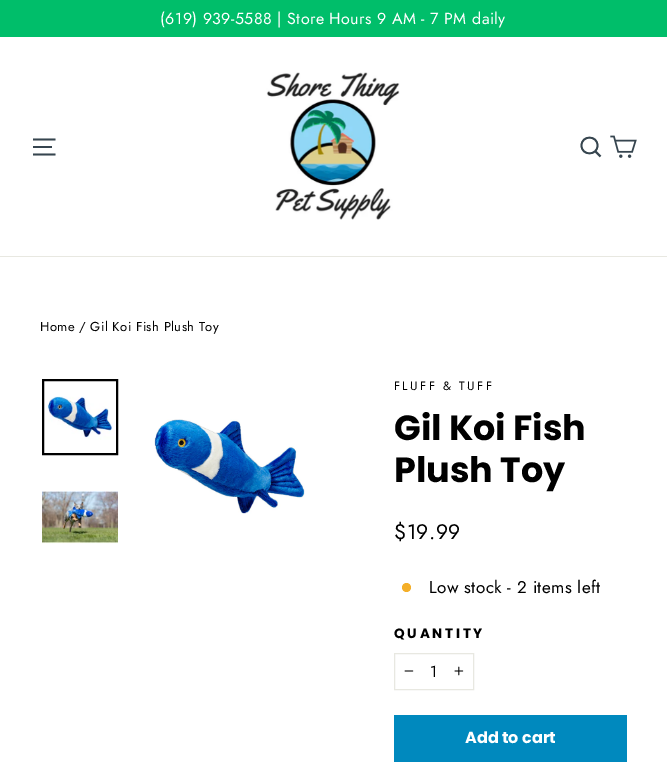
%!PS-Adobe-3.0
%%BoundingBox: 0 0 667 764
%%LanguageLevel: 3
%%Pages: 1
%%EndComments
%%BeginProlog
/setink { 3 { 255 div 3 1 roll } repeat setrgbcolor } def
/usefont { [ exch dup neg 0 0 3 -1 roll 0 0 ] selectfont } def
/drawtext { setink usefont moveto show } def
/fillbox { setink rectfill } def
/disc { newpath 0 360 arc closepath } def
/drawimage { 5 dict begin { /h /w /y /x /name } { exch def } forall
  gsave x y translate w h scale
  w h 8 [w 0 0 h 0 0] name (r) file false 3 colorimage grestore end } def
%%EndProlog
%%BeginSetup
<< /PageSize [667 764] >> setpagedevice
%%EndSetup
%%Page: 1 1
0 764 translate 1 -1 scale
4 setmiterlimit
0 0 667 764 255 255 255 fillbox
0 0 667 37 0 190 106 fillbox
/Jost-Regular 16 usefont
255 255 255 setink
160 24 moveto 0.4 0 (\(619\) 939-5588 | Store Hours 9 AM - 7 PM daily) ashow
0 256 667 1 232 232 225 fillbox
54 69 79 setink
1.8 setlinewidth
33 139.5 moveto 55.5 139.5 lineto 33 147 moveto 52 147 lineto 33 154.5 moveto 55.5 154.5 lineto stroke
(assets/img1.rgb) 266 72 134 148 drawimage
597.5 145.5 moveto 597.5 156 581.5 156 581.5 145.5 curveto 581.5 135 597.5 135 597.5 145.5 curveto closepath 600.5 156.5 moveto 595.5 151.5 lineto stroke
(assets/img2.rgb) 610 135 27 23 drawimage
/Jost-Regular 13 usefont
0 0 0 setink
40 331 moveto 0.4 0 (Home / Gil Koi Fish Plush Toy) ashow
(assets/img3.rgb) 47 396 68 44 drawimage
2 setlinewidth
43 380 74 74 rectstroke
(assets/img4.rgb) 42 491 76 53 drawimage
(assets/img5.rgb) 154 419 151 95 drawimage
/Jost-Regular 12 usefont
394 390 moveto 2.4 0 (FLUFF & TUFF) ashow
(Gil Koi Fish) 394 440 /Poppins-Bold 35 0 0 0 drawtext
(Plush Toy) 394 482 /Poppins-Bold 35 0 0 0 drawtext
/Jost-Regular 21 usefont
394 539 moveto 0.4 0 ($19.99) ashow
244 175 41 setink
406.5 587.5 4.5 disc fill
/Jost-Regular 17 usefont
0 0 0 setink
429 593 moveto 0.4 0 (Low stock - 2 items left) ashow
/Poppins-Bold 13.5 usefont
394 638 moveto 2.75 0 (QUANTITY) ashow
232 232 225 setink
1 setlinewidth
394.5 653.5 79 36 rectstroke
(assets/img6.rgb) 404 670 10 2 drawimage
(1) 430 677 /Jost-Regular 16 0 0 0 drawtext
(assets/img7.rgb) 454 666 10 10 drawimage
394 715 233 47 0 137 190 fillbox
(Add to cart) 465 743 /Poppins-Bold 16 255 255 255 drawtext
showpage
%%EOF
